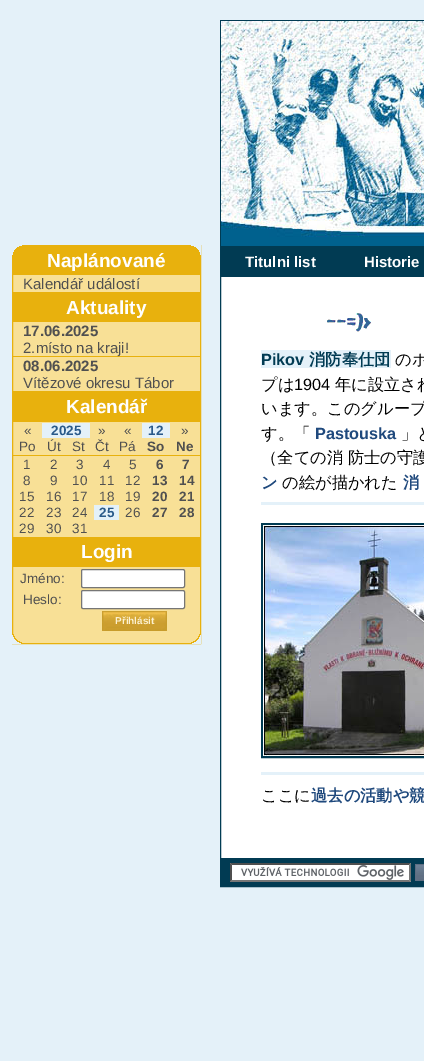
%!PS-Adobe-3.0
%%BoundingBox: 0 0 424 1061
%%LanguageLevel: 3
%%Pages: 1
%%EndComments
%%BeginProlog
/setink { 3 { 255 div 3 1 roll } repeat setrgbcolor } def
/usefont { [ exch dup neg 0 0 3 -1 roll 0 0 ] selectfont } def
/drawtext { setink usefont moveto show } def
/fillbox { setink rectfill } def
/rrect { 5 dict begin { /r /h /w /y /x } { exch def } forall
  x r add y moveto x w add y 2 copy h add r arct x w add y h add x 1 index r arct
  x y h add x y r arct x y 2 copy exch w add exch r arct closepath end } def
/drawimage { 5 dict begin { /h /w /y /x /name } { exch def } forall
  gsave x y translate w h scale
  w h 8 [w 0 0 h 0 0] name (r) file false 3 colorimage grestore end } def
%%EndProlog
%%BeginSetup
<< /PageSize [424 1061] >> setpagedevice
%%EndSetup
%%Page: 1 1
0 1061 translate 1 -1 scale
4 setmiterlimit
0 0 424 1061 228 241 249 fillbox
13 275 187 368 248 224 150 fillbox
232 177 13 setink
12.5 245.5 188 398 rectstroke
13 246 187 29 232 177 13 fillbox
(assets/img1.rgb) 12 245 10 10 drawimage
(assets/img2.rgb) 191 245 10 10 drawimage
(Naplánované) 47 267 /LiberationSans-Bold 19 255 255 255 drawtext
13 292 187 30 232 177 13 fillbox
(Kalendář událostí) 23 289 /LiberationSans-Regular 15 80 80 80 drawtext
(Aktuality) 66 314 /LiberationSans-Bold 19 255 255 255 drawtext
13 356 187 1 232 177 13 fillbox
(17.06.2025) 23 336 /LiberationSans-Bold 15 80 80 80 drawtext
(2.místo na kraji!) 23 353 /LiberationSans-Regular 15 80 80 80 drawtext
13 391 187 31 232 177 13 fillbox
(08.06.2025) 23 371 /LiberationSans-Bold 15 80 80 80 drawtext
(Vítězové okresu Tábor) 23 388 /LiberationSans-Regular 15 80 80 80 drawtext
(Kalendář) 66 413 /LiberationSans-Bold 19 255 255 255 drawtext
(«) 24 435 /LiberationSans-Regular 13.5 80 80 80 drawtext
42 423 48 15 228 241 249 fillbox
(2025) 51 435 /LiberationSans-Bold 13.5 42 90 138 drawtext
(») 98 435 /LiberationSans-Regular 13.5 80 80 80 drawtext
(«) 124 435 /LiberationSans-Regular 13.5 80 80 80 drawtext
142 423 28 15 228 241 249 fillbox
(12) 148 435 /LiberationSans-Bold 13.5 42 90 138 drawtext
(») 181 435 /LiberationSans-Regular 13.5 80 80 80 drawtext
(Po) 19 451 /LiberationSans-Regular 13.5 80 80 80 drawtext
(Út) 47 451 /LiberationSans-Regular 13.5 80 80 80 drawtext
(St) 72 451 /LiberationSans-Regular 13.5 80 80 80 drawtext
(Čt) 95 451 /LiberationSans-Regular 13.5 80 80 80 drawtext
(Pá) 119 451 /LiberationSans-Regular 13.5 80 80 80 drawtext
(So) 147 451 /LiberationSans-Bold 13.5 80 80 80 drawtext
(Ne) 176 451 /LiberationSans-Bold 13.5 80 80 80 drawtext
13 455 187 1 232 177 13 fillbox
(1) 23 469 /LiberationSans-Regular 13.5 80 80 80 drawtext
(2) 50 469 /LiberationSans-Regular 13.5 80 80 80 drawtext
(3) 76 469 /LiberationSans-Regular 13.5 80 80 80 drawtext
(4) 103 469 /LiberationSans-Regular 13.5 80 80 80 drawtext
(5) 129 469 /LiberationSans-Regular 13.5 80 80 80 drawtext
(6) 156 469 /LiberationSans-Bold 13.5 80 80 80 drawtext
(7) 182 469 /LiberationSans-Bold 13.5 80 80 80 drawtext
(8) 23 485 /LiberationSans-Regular 13.5 80 80 80 drawtext
(9) 50 485 /LiberationSans-Regular 13.5 80 80 80 drawtext
(10) 72 485 /LiberationSans-Regular 13.5 80 80 80 drawtext
(11) 99 485 /LiberationSans-Regular 13.5 80 80 80 drawtext
(12) 125 485 /LiberationSans-Regular 13.5 80 80 80 drawtext
(13) 152 485 /LiberationSans-Bold 13.5 80 80 80 drawtext
(14) 179 485 /LiberationSans-Bold 13.5 80 80 80 drawtext
(15) 19 501 /LiberationSans-Regular 13.5 80 80 80 drawtext
(16) 46 501 /LiberationSans-Regular 13.5 80 80 80 drawtext
(17) 72 501 /LiberationSans-Regular 13.5 80 80 80 drawtext
(18) 99 501 /LiberationSans-Regular 13.5 80 80 80 drawtext
(19) 125 501 /LiberationSans-Regular 13.5 80 80 80 drawtext
(20) 152 501 /LiberationSans-Bold 13.5 80 80 80 drawtext
(21) 179 501 /LiberationSans-Bold 13.5 80 80 80 drawtext
(22) 19 517 /LiberationSans-Regular 13.5 80 80 80 drawtext
(23) 46 517 /LiberationSans-Regular 13.5 80 80 80 drawtext
(24) 72 517 /LiberationSans-Regular 13.5 80 80 80 drawtext
94 505 25 15 228 241 249 fillbox
(25) 99 517 /LiberationSans-Bold 13.5 42 90 138 drawtext
(26) 125 517 /LiberationSans-Regular 13.5 80 80 80 drawtext
(27) 152 517 /LiberationSans-Bold 13.5 80 80 80 drawtext
(28) 179 517 /LiberationSans-Bold 13.5 80 80 80 drawtext
(29) 19 533 /LiberationSans-Regular 13.5 80 80 80 drawtext
(30) 46 533 /LiberationSans-Regular 13.5 80 80 80 drawtext
(31) 72 533 /LiberationSans-Regular 13.5 80 80 80 drawtext
13 537 187 30 232 177 13 fillbox
(Login) 81 558 /LiberationSans-Bold 19 255 255 255 drawtext
(Jméno:) 20 583 /LiberationSans-Regular 13.5 80 80 80 drawtext
255 255 255 setink
81.5 569.5 103 18 1.5 rrect gsave fill grestore
118 118 118 setink
stroke
(Heslo:) 23 604 /LiberationSans-Regular 13.5 80 80 80 drawtext
255 255 255 setink
81.5 590.5 103 18 1.5 rrect gsave fill grestore
118 118 118 setink
stroke
(assets/img3.rgb) 102 611 65 20 drawimage
(Přihlásit) 115 624 /LiberationSans-Bold 10 252 241 208 drawtext
(assets/img4.rgb) 12 634 10 10 drawimage
(assets/img5.rgb) 191 634 10 10 drawimage
221 277 203 581 255 255 255 fillbox
1 59 83 setink
220.5 20.5 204 866 rectstroke
221 237 203 9 0 97 142 fillbox
(assets/img6.rgb) 221 21 203 216 drawimage
221 246 203 31 1 59 83 fillbox
(Titulni list) 245 267 /LiberationSans-Bold 15 255 255 255 drawtext
(Historie) 364 267 /LiberationSans-Bold 15 255 255 255 drawtext
(assets/img7.rgb) 327 313 44 19 drawimage
261 350 130 18 228 241 249 fillbox
(Pikov) 261 365 /LiberationSans-Bold 16.25 1 59 83 drawtext
(消防奉仕団) 309 365 /WenQuanYiZenHei-Bold 16.25 1 59 83 drawtext
(のホ) 395 365 /WenQuanYiZenHei-Medium 16.25 0 0 0 drawtext
(プは) 261 390 /WenQuanYiZenHei-Medium 16.25 0 0 0 drawtext
(1904) 294 390 /LiberationSans-Regular 16.25 0 0 0 drawtext
(年に設立され) 335 390 /WenQuanYiZenHei-Medium 16.25 0 0 0 drawtext
(います。このグループ) 261 414 /WenQuanYiZenHei-Medium 16.25 0 0 0 drawtext
(す。「) 261 439 /WenQuanYiZenHei-Medium 16.25 0 0 0 drawtext
(Pastouska) 315 439 /LiberationSans-Bold 16.25 31 73 125 drawtext
(」と) 401 439 /WenQuanYiZenHei-Medium 16.25 0 0 0 drawtext
(（全ての消 防士の守護) 261 463 /WenQuanYiZenHei-Medium 16.25 0 0 0 drawtext
(ン) 261 488 /WenQuanYiZenHei-Bold 16.25 31 73 125 drawtext
(の絵が描かれた) 282 488 /WenQuanYiZenHei-Medium 16.25 0 0 0 drawtext
(消) 403 488 /WenQuanYiZenHei-Bold 16.25 31 73 125 drawtext
261 502 163 3 228 241 249 fillbox
1 59 83 setink
2 setlinewidth
262 524 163 233 rectstroke
(assets/img8.rgb) 263 525 161 231 drawimage
261 772 163 3 228 241 249 fillbox
(ここに) 261 801 /WenQuanYiZenHei-Medium 16.25 0 0 0 drawtext
(過去の活動や競) 311 801 /WenQuanYiZenHei-Bold 16.25 31 73 125 drawtext
221 858 203 28 1 59 83 fillbox
230 863 181 19 255 255 255 fillbox
(assets/img9.rgb) 241 865 163 15 drawimage
79 79 79 setink
230 863 moveto 411 863 lineto 409 865 lineto 232 865 lineto closepath fill
118 118 118 setink
411 863 moveto 411 882 lineto 409 880 lineto 409 865 lineto closepath fill
411 882 moveto 230 882 lineto 232 880 lineto 409 880 lineto closepath fill
79 79 79 setink
230 882 moveto 230 863 lineto 232 865 lineto 232 880 lineto closepath fill
(assets/img10.rgb) 415 864 9 17 drawimage
showpage
%%EOF
